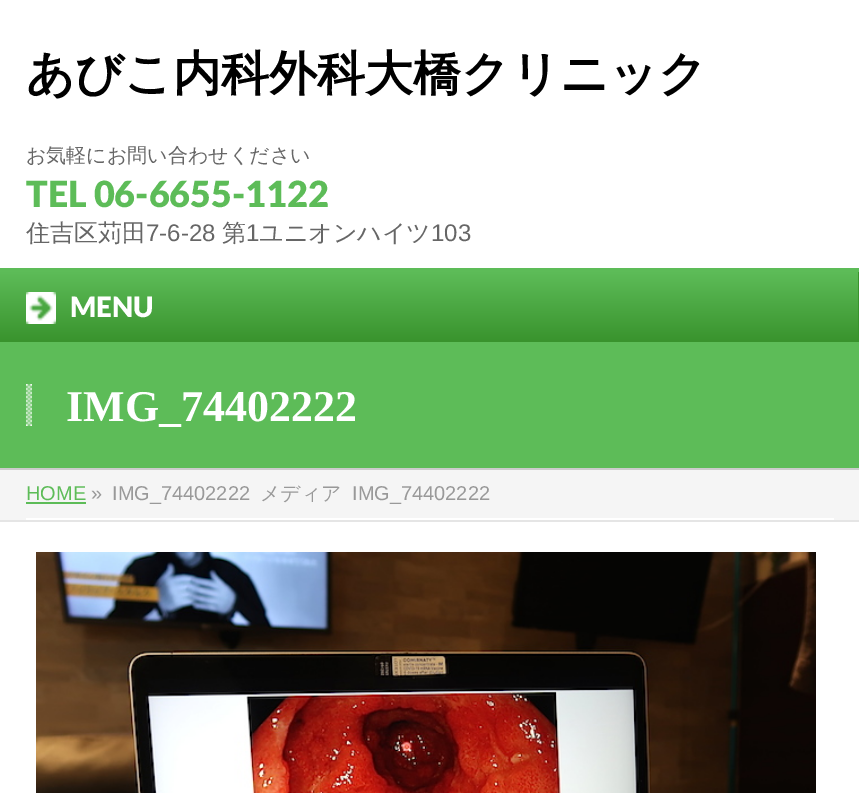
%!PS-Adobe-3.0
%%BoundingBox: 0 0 859 793
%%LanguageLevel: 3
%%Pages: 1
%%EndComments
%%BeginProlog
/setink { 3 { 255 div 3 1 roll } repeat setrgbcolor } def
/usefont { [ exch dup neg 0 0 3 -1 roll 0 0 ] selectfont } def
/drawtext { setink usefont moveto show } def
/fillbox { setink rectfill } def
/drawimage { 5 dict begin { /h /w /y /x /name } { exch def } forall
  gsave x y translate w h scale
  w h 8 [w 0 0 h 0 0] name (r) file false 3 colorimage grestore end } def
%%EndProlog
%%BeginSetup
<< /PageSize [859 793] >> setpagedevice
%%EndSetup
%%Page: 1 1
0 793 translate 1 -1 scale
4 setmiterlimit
0 0 859 793 255 255 255 fillbox
(あびこ内科外科大橋クリニック) 26 90 /WenQuanYiZenHei-Bold 48 0 0 0 drawtext
(お気軽にお問い合わせください) 26 162 /WenQuanYiZenHei-Medium 20 102 102 102 drawtext
(TEL 06-6655-1122) 26 207 /Lato-Black 36 93 188 88 drawtext
(住吉区苅田) 26 241 /WenQuanYiZenHei-Medium 24 102 102 102 drawtext
(7-6-28) 146 241 /LiberationSans-Regular 24 102 102 102 drawtext
(第) 222 241 /WenQuanYiZenHei-Medium 24 102 102 102 drawtext
(1) 246 241 /LiberationSans-Regular 24 102 102 102 drawtext
(ユニオンハイツ) 259 241 /WenQuanYiZenHei-Medium 24 102 102 102 drawtext
(103) 431 241 /LiberationSans-Regular 24 102 102 102 drawtext
0 268 859 4 93 188 88 fillbox
gsave 0 272 moveto 858 272 lineto 858 342 lineto 0 342 lineto closepath clip newpath
<< /ShadingType 2 /ColorSpace /DeviceRGB /Coords [429 272 429 342] /Extend [true true] /Function << /FunctionType 2 /Domain [0 1] /C0 [0.365 0.737 0.345] /C1 [0.224 0.576 0.176] /N 1 >> >> shfill grestore
858 272 1 70 57 147 45 fillbox
(assets/img1.rgb) 26 292 30 32 drawimage
(MENU) 70 317 /Lato-Black 28 255 255 255 drawtext
0 342 859 126 93 188 88 fillbox
0 468 859 2 204 204 204 fillbox
(assets/img2.rgb) 26 384 6 42 drawimage
(IMG_74402222) 66 421 /LiberationSerif-Bold 44 255 255 255 drawtext
0 470 859 50 245 245 245 fillbox
0 520 859 2 229 229 229 fillbox
26 518 808 2 255 255 255 fillbox
(HOME) 26 500 /LiberationSans-Regular 20 93 188 88 drawtext
26 502 60 2 93 188 88 fillbox
(») 91 500 /LiberationSans-Regular 20 153 153 153 drawtext
(IMG_74402222) 112 500 /LiberationSans-Regular 20 153 153 153 drawtext
(メディア) 260 500 /WenQuanYiZenHei-Medium 20 153 153 153 drawtext
(IMG_74402222) 352 500 /LiberationSans-Regular 20 153 153 153 drawtext
(assets/img3.rgb) 36 552 780 241 drawimage
showpage
%%EOF
